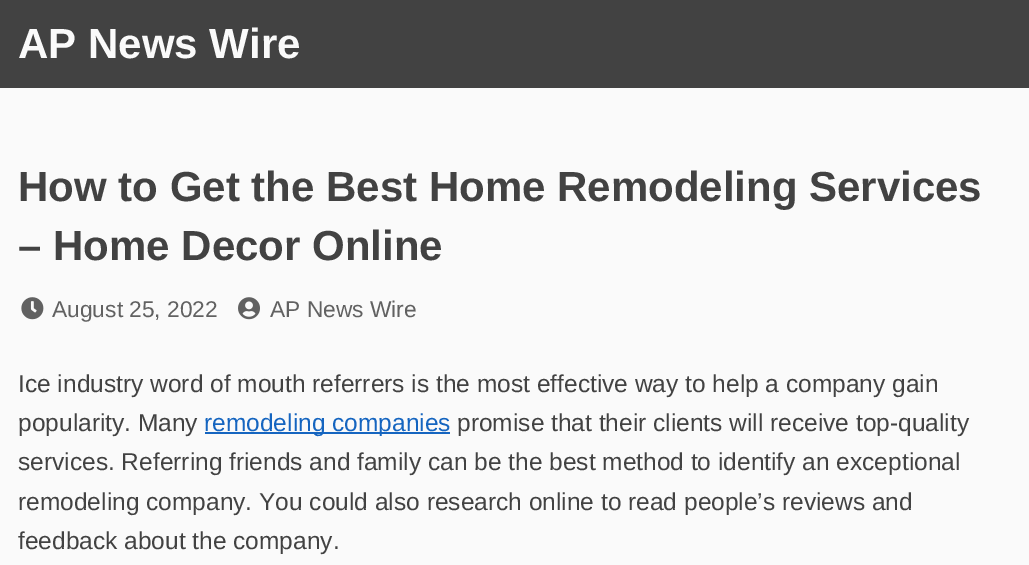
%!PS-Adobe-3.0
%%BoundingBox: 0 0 1029 565
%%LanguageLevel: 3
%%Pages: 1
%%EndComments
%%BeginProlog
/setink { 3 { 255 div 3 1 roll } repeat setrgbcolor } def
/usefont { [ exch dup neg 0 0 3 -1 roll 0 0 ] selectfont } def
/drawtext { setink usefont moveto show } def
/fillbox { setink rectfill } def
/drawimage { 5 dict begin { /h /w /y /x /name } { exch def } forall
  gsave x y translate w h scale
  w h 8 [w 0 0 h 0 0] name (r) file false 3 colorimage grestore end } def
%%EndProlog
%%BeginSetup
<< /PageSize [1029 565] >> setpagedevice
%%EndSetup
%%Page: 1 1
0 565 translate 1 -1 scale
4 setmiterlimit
0 0 1029 565 250 250 250 fillbox
0 0 1029 88 66 66 66 fillbox
(AP News Wire) 18 58 /LiberationSans-Bold 42 250 250 250 drawtext
(How to Get the Best Home Remodeling Services) 18 201 /LiberationSans-Bold 42 66 66 66 drawtext
(– Home Decor Online) 18 260 /LiberationSans-Bold 42 66 66 66 drawtext
(assets/img1.rgb) 21 297 23 23 drawimage
(August 25, 2022) 52 317 /LiberationSans-Regular 22.75 97 97 97 drawtext
(assets/img2.rgb) 238 297 22 23 drawimage
(AP News Wire) 270 317 /LiberationSans-Regular 22.75 97 97 97 drawtext
(Ice industry word of mouth referrers is the most effective way to help a company gain) 18 392 /LiberationSans-Regular 24.5 66 66 66 drawtext
(popularity. Many) 18 431 /LiberationSans-Regular 24.5 66 66 66 drawtext
205 432 245 2 21 101 192 fillbox
(remodeling companies) 204 431 /LiberationSans-Regular 24.5 21 101 192 drawtext
(promise that their clients will receive top-quality) 457 431 /LiberationSans-Regular 24.5 66 66 66 drawtext
(services. Referring friends and family can be the best method to identify an exceptional) 18 470 /LiberationSans-Regular 24.5 66 66 66 drawtext
(remodeling company. You could also research online to read people’s reviews and) 18 510 /LiberationSans-Regular 24.5 66 66 66 drawtext
(feedback about the company.) 18 549 /LiberationSans-Regular 24.5 66 66 66 drawtext
showpage
%%EOF
